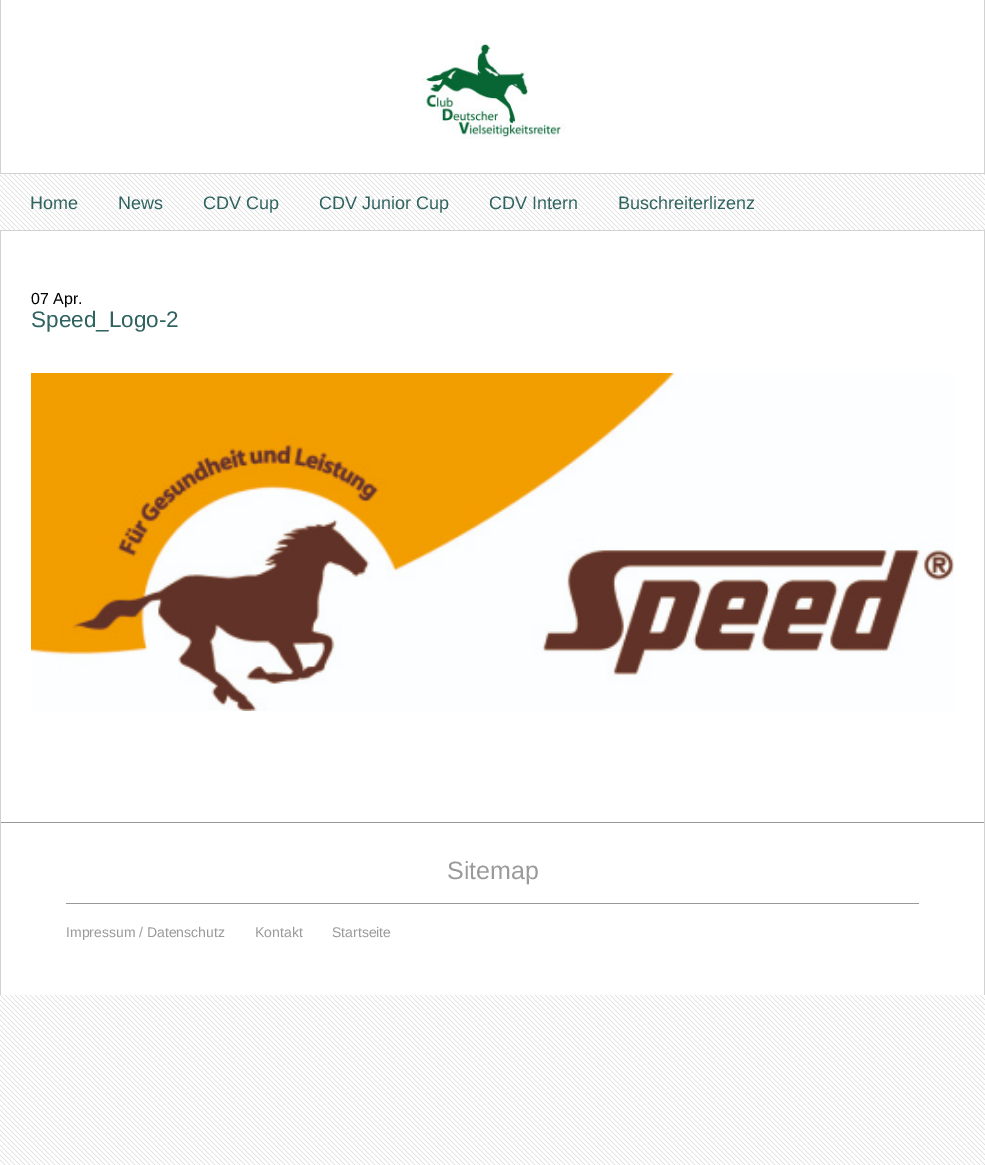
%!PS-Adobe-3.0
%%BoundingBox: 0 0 985 1165
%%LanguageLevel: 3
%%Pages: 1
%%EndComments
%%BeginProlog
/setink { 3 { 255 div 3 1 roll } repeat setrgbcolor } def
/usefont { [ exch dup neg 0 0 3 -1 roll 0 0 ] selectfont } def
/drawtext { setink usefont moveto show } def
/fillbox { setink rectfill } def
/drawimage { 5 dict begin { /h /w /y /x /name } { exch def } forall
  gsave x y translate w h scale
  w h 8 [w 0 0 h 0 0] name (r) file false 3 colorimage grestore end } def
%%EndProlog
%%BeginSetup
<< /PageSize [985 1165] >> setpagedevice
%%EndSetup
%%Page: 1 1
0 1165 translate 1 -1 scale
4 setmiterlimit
0 0 985 1165 255 255 255 fillbox
(assets/img1.rgb) 0 174 985 991 drawimage
984 0 1 174 210 210 210 fillbox
0 173 985 1 210 210 210 fillbox
0 0 1 174 210 210 210 fillbox
(assets/img2.rgb) 422 40 144 99 drawimage
(Home) 30 209 /LiberationSans-Regular 18 47 99 96 drawtext
(News) 118 209 /LiberationSans-Regular 18 47 99 96 drawtext
(CDV Cup) 203 209 /LiberationSans-Regular 18 47 99 96 drawtext
(CDV Junior Cup) 319 209 /LiberationSans-Regular 18 47 99 96 drawtext
(CDV Intern) 489 209 /LiberationSans-Regular 18 47 99 96 drawtext
(Buschreiterlizenz) 618 209 /LiberationSans-Regular 18 47 99 96 drawtext
1 231 983 591 255 255 255 fillbox
0 230 985 1 210 210 210 fillbox
984 230 1 592 210 210 210 fillbox
0 230 1 592 210 210 210 fillbox
(07 Apr.) 31 304 /LiberationSans-Regular 16 0 0 0 drawtext
(Speed_Logo-2) 31 327 /LiberationSans-Regular 22.5 47 99 96 drawtext
(assets/img3.rgb) 31 373 923 338 drawimage
1 823 983 172 255 255 255 fillbox
0 822 985 1 153 153 153 fillbox
984 822 1 173 210 210 210 fillbox
0 822 1 173 210 210 210 fillbox
66 903 853 1 153 153 153 fillbox
(Sitemap) 447 879 /LiberationSans-Regular 25 154 154 154 drawtext
(Impressum / Datenschutz) 66 937 /LiberationSans-Regular 14 154 154 154 drawtext
(Kontakt) 255 937 /LiberationSans-Regular 14 154 154 154 drawtext
(Startseite) 332 937 /LiberationSans-Regular 14 154 154 154 drawtext
showpage
%%EOF
